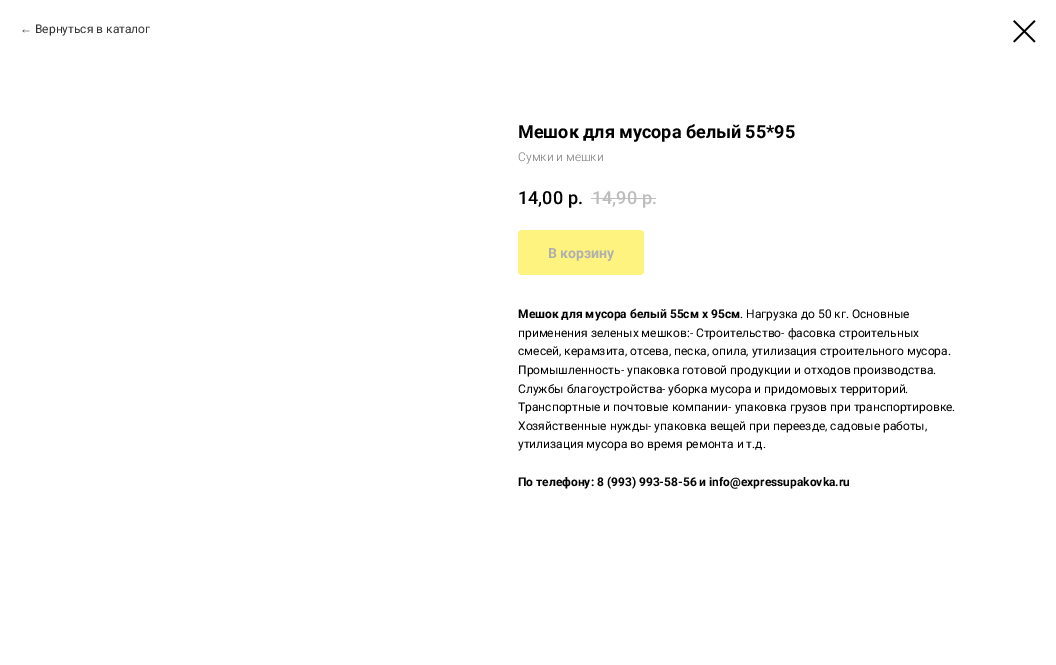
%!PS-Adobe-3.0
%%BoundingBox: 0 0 1056 665
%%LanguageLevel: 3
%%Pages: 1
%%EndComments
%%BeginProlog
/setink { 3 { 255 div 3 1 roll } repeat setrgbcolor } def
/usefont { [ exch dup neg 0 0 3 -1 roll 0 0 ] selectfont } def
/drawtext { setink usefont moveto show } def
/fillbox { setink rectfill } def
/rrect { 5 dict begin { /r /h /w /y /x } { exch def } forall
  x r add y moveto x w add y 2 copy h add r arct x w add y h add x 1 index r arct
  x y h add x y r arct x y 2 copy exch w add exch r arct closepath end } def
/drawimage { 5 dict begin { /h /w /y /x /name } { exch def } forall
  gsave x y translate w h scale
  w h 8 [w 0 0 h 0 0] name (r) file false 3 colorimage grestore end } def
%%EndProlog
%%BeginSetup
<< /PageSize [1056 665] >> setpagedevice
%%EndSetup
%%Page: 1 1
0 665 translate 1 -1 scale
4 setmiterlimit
0 0 1056 665 255 255 255 fillbox
(←) 20 33 /LiberationSans-Regular 12 51 51 51 drawtext
(Вернуться в каталог) 35 33 /Roboto-Regular 12 51 51 51 drawtext
(assets/img1.rgb) 1013 20 23 23 drawimage
(Мешок для мусора белый 55*95) 518 138 /Roboto-Bold 18 0 0 0 drawtext
(Сумки и мешки) 518 161 /Roboto-Light 12 119 119 119 drawtext
(14,00) 518 204 /Roboto-Medium 18 0 0 0 drawtext
(р.) 568 204 /Roboto-Medium 18 0 0 0 drawtext
(14,90) 592 204 /Roboto-Medium 18 189 189 189 drawtext
(р.) 642 204 /Roboto-Medium 18 189 189 189 drawtext
591 198 65 1 189 189 189 fillbox
255 243 128 setink
518 230 126 45 4 rrect fill
(В корзину) 548 258 /Roboto-Bold 14 175 175 175 drawtext
(Мешок для мусора белый 55см х 95см) 518 318 /Roboto-Bold 12 0 0 0 drawtext
(. Нагрузка до 50 кг. Основные) 740 318 /Roboto-Regular 12 0 0 0 drawtext
(применения зеленых мешков:- Строительство- фасовка строительных) 518 337 /Roboto-Regular 12 0 0 0 drawtext
(смесей, керамзита, отсева, песка, опила, утилизация строительного мусора.) 518 355 /Roboto-Regular 12 0 0 0 drawtext
(Промышленность- упаковка готовой продукции и отходов производства.) 518 374 /Roboto-Regular 12 0 0 0 drawtext
(Службы благоустройства- уборка мусора и придомовых территорий.) 518 393 /Roboto-Regular 12 0 0 0 drawtext
(Транспортные и почтовые компании- упаковка грузов при транспортировке.) 518 411 /Roboto-Regular 12 0 0 0 drawtext
(Хозяйственные нужды- упаковка вещей при переезде, садовые работы,) 518 430 /Roboto-Regular 12 0 0 0 drawtext
(утилизация мусора во время ремонта и т.д.) 518 448 /Roboto-Regular 12 0 0 0 drawtext
(По телефону: 8 \(993\) 993-58-56 и info@expressupakovka.ru) 518 486 /Roboto-Bold 12 0 0 0 drawtext
showpage
%%EOF
